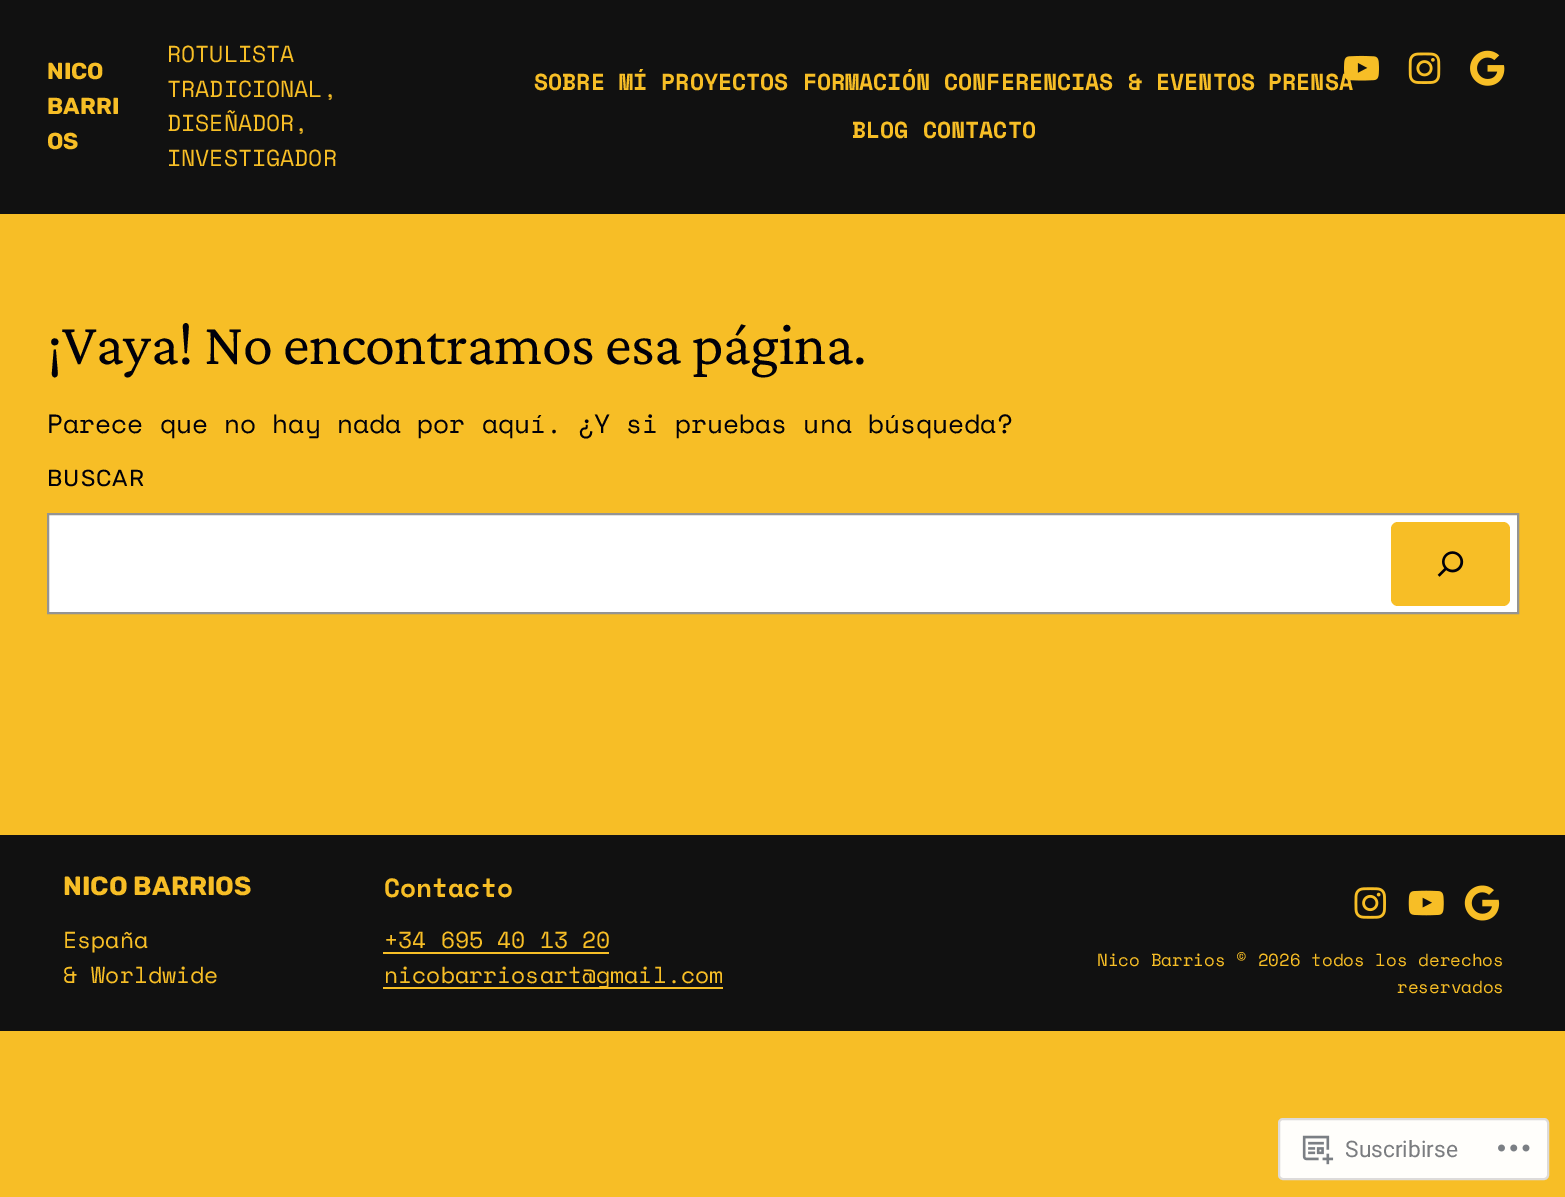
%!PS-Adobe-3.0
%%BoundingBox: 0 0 1565 1197
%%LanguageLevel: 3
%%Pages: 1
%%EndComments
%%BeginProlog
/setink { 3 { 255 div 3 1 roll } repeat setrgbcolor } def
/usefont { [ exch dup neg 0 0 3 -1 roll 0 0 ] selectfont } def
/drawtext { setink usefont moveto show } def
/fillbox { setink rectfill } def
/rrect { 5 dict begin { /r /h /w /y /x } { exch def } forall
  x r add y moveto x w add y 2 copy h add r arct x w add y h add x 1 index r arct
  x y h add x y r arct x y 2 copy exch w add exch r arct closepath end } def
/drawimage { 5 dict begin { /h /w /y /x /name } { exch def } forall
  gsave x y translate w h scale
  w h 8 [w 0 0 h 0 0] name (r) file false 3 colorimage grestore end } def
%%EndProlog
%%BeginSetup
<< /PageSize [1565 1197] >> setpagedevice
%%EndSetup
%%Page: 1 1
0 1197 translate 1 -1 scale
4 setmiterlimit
0 0 1565 1197 247 190 38 fillbox
0 0 1565 214 17 17 17 fillbox
(NICO) 47 79 /Rubik-Bold 23.1 247 190 38 drawtext
(BARRI) 47 114 /Rubik-Bold 23.1 247 190 38 drawtext
(OS) 47 149 /Rubik-Bold 23.1 247 190 38 drawtext
(ROTULISTA) 167 62 /SpaceMono-Regular 23.1 247 190 38 drawtext
(TRADICIONAL,) 167 97 /SpaceMono-Regular 23.1 247 190 38 drawtext
(DISEÑADOR,) 167 131 /SpaceMono-Regular 23.1 247 190 38 drawtext
(INVESTIGADOR) 167 166 /SpaceMono-Regular 23.1 247 190 38 drawtext
(SOBRE MÍ PROYECTOS FORMACIÓN CONFERENCIAS & EVENTOS) 534 90 /SpaceMono-Bold 23.1 247 190 38 drawtext
(assets/img1.rgb) 1344 55 35 26 drawimage
(PRENSA) 1268 90 /SpaceMono-Bold 23.1 247 190 38 drawtext
(BLOG CONTACTO) 852 138 /SpaceMono-Bold 23.1 247 190 38 drawtext
(assets/img2.rgb) 1408 52 33 32 drawimage
(assets/img3.rgb) 1470 50 35 36 drawimage
/CrimsonPro-Regular 60.25 usefont
0 0 10 setink
47 364 moveto -0.55 0 (¡Vaya! No encontramos esa página.) ashow
(Parece que no hay nada por aquí. ¿Y si pruebas una búsqueda?) 47 433 /SpaceMono-Regular 26.3 0 0 10 drawtext
/Rubik-Regular 23.1 usefont
47 486 moveto 1 0 (BUSCAR) ashow
255 255 255 setink
48 514 moveto 1518 514 lineto 1518 613 lineto 48 613 lineto closepath gsave fill grestore
148 148 148 setink
2 setlinewidth
stroke
247 190 38 setink
1391 522 119 84 7 rrect fill
(assets/img4.rgb) 1437 551 27 26 drawimage
0 835 1565 196 17 17 17 fillbox
(NICO BARRIOS) 63 895 /Rubik-Bold 26.3 247 190 38 drawtext
(España) 63 948 /SpaceMono-Regular 23.1 247 190 38 drawtext
(& Worldwide) 63 983 /SpaceMono-Regular 23.1 247 190 38 drawtext
(Contacto) 384 897 /SpaceMono-Bold 26.3 247 190 38 drawtext
(+34 695 40 13 20) 384 948 /SpaceMono-Regular 23.1 247 190 38 drawtext
383 952 226 2 247 190 38 fillbox
383 987 340 2 247 190 38 fillbox
(nicobarriosart@gmail.com) 384 983 /SpaceMono-Regular 23.1 247 190 38 drawtext
(assets/img5.rgb) 1354 887 32 32 drawimage
(assets/img6.rgb) 1408 890 36 26 drawimage
(assets/img7.rgb) 1464 885 36 36 drawimage
(Nico Barrios © 2026 todos los derechos) 1097 966 /SpaceMono-Regular 17.5 247 190 38 drawtext
(reservados) 1397 993 /SpaceMono-Regular 17.5 247 190 38 drawtext
255 254 251 setink
1279 1119 269 60 4 rrect gsave fill grestore
221 219 218 setink
stroke
(assets/img8.rgb) 1302 1135 32 30 drawimage
(Suscribirse) 1345 1157 /Roboto-Regular 22.75 123 125 128 drawtext
(assets/img9.rgb) 1498 1144 32 8 drawimage
showpage
%%EOF
